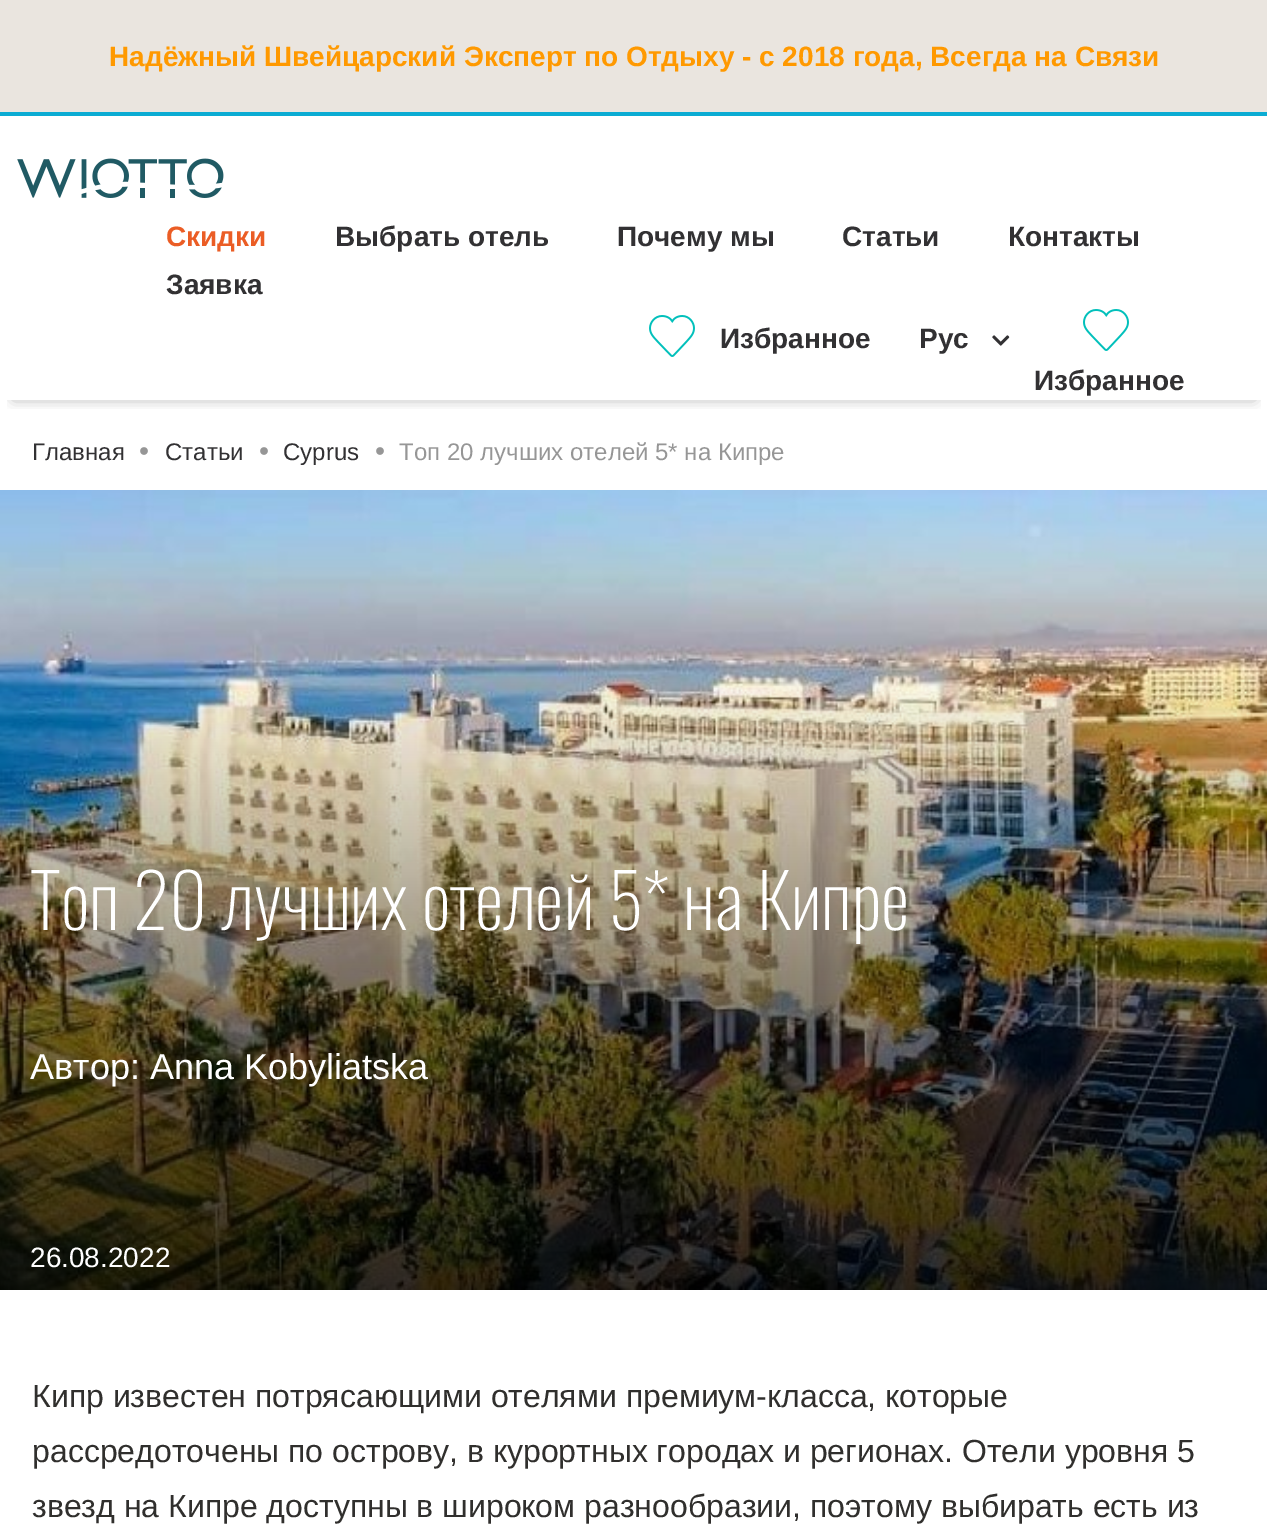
%!PS-Adobe-3.0
%%BoundingBox: 0 0 1267 1535
%%LanguageLevel: 3
%%Pages: 1
%%EndComments
%%BeginProlog
/setink { 3 { 255 div 3 1 roll } repeat setrgbcolor } def
/usefont { [ exch dup neg 0 0 3 -1 roll 0 0 ] selectfont } def
/drawtext { setink usefont moveto show } def
/fillbox { setink rectfill } def
/setalpha { dup .setfillconstantalpha .setstrokeconstantalpha } def
/rrect { 5 dict begin { /r /h /w /y /x } { exch def } forall
  x r add y moveto x w add y 2 copy h add r arct x w add y h add x 1 index r arct
  x y h add x y r arct x y 2 copy exch w add exch r arct closepath end } def
/softshadow { 12 dict begin { /a /b /q /h /w /y /x } { exch def } forall gsave /was 0 def
  9 -2 -9 { dup b mul 4 div /e exch def 1 sub .425 mul 2.718 exch exp 1 add a .99 .min exch div /now exch def
    1 1 now sub 1 was sub div sub setalpha /was now def
    w h .min e 2 mul add 0 gt { x e sub y e sub w e 2 mul add h e 2 mul add
      q e add b .6 mul add w h .min 2 div e add .min 0 .max rrect fill } if } for grestore end } def
/drawimage { 5 dict begin { /h /w /y /x /name } { exch def } forall
  gsave x y translate w h scale
  w h 8 [w 0 0 h 0 0] name (r) file false 3 colorimage grestore end } def
%%EndProlog
%%BeginSetup
<< /PageSize [1267 1535] /PageUsesTransparency true >> setpagedevice
%%EndSetup
%%Page: 1 1
0 .pushpdf14devicefilter
0 1535 translate 1 -1 scale
4 setmiterlimit
0 0 1267 1535 255 255 255 fillbox
0 0 1267 112 234 229 223 fillbox
0 112 1267 4 11 172 211 fillbox
(Надёжный Швейцарский Эксперт по Отдыху - с 2018 года, Всегда на Связи) 109 66 /LiberationSans-Bold 28 255 153 0 drawtext
gsave
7 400 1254 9 rectclip
0 0 0 setink
14 142 1240 256 0 7 0.35 softshadow
grestore
(assets/img1.rgb) 17 158 207 40 drawimage
(Скидки) 166 246 /LiberationSans-Bold 28 235 93 37 drawtext
(Выбрать отель) 335 246 /LiberationSans-Bold 28 50 49 51 drawtext
(Почему мы) 617 246 /LiberationSans-Bold 28 50 49 51 drawtext
(Статьи) 842 246 /LiberationSans-Bold 28 50 49 51 drawtext
(Контакты) 1008 246 /LiberationSans-Bold 28 50 49 51 drawtext
(Заявка) 166 294 /LiberationSans-Bold 28 50 49 51 drawtext
(assets/img2.rgb) 649 315 46 42 drawimage
(Избранное) 720 348 /LiberationSans-Bold 28 50 49 51 drawtext
(Рус) 919 348 /LiberationSans-Bold 28 50 49 51 drawtext
(assets/img3.rgb) 992 335 18 11 drawimage
(assets/img2.rgb) 1083 309 46 42 drawimage
(Избранное) 1034 390 /LiberationSans-Bold 28 50 49 51 drawtext
(Главная) 32 460 /LiberationSans-Regular 24 50 49 51 drawtext
(assets/img4.rgb) 140 447 8 8 drawimage
(Статьи) 165 460 /LiberationSans-Regular 24 50 49 51 drawtext
(assets/img4.rgb) 260 447 8 8 drawimage
(Cyprus) 283 460 /LiberationSans-Regular 24 50 49 51 drawtext
(assets/img4.rgb) 376 447 8 8 drawimage
(Топ 20 лучших отелей 5* на Кипре) 399 460 /LiberationSans-Regular 24 150 150 150 drawtext
(assets/img5.rgb) 0 490 1267 800 drawimage
(Топ 20 лучших отелей 5* на Кипре) 30 930 /Oswald-ExtraLight 74 255 255 255 drawtext
(Автор: Anna Kobyliatska) 30 1079 /LiberationSans-Regular 36 255 255 255 drawtext
(26.08.2022) 30 1267 /LiberationSans-Regular 28 255 255 255 drawtext
(Кипр известен потрясающими отелями премиум-класса, которые) 32 1407 /LiberationSans-Regular 32 48 47 45 drawtext
(рассредоточены по острову, в курортных городах и регионах. Отели уровня 5) 32 1462 /LiberationSans-Regular 32 48 47 45 drawtext
(звезд на Кипре доступны в широком разнообразии, поэтому выбирать есть из) 32 1517 /LiberationSans-Regular 32 48 47 45 drawtext
.poppdf14devicefilter showpage
%%EOF
